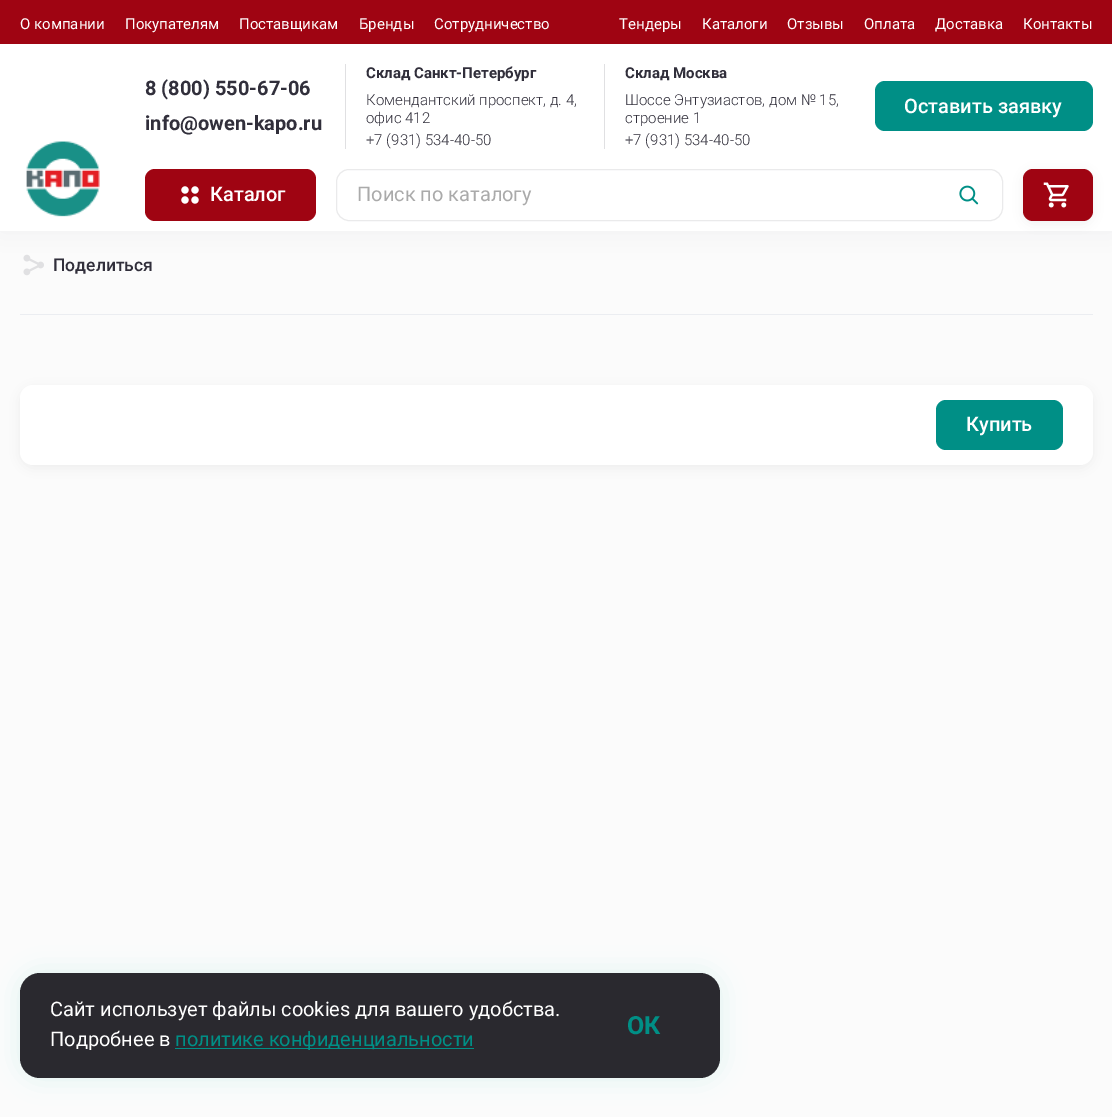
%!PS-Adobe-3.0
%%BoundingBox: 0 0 1112 1117
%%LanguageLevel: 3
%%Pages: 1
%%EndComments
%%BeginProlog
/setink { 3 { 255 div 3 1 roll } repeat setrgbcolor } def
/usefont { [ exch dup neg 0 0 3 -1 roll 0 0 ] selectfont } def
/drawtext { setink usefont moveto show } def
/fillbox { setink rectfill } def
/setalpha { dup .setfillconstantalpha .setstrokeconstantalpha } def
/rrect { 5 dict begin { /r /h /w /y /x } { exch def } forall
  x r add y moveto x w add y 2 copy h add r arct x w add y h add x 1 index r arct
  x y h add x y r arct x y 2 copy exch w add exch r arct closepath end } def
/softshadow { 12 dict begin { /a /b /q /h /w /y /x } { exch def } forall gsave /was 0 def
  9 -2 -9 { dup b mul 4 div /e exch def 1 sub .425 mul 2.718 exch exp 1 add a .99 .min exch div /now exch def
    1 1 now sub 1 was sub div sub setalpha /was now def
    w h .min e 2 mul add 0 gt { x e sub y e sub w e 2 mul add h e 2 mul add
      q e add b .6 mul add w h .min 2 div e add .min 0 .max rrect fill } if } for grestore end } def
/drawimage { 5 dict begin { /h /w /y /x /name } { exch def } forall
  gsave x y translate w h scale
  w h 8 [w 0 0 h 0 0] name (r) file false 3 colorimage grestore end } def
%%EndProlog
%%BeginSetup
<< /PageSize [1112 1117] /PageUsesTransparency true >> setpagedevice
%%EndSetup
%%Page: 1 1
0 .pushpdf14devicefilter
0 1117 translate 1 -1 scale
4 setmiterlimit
0 0 1112 1117 251 251 251 fillbox
(assets/img5.rgb) 23 254 21 22 drawimage
49 47 59 setink
0 0 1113 231 0 12.5 0.06 softshadow
0 44 1112 187 255 255 255 fillbox
0 0 1112 44 159 4 18 fillbox
(О компании) 20 29 /Roboto-Regular 15 255 255 255 drawtext
(Покупателям) 125 29 /Roboto-Regular 15 255 255 255 drawtext
(Поставщикам) 239 29 /Roboto-Regular 15 255 255 255 drawtext
(Бренды) 359 29 /Roboto-Regular 15 255 255 255 drawtext
(Сотрудничество) 434 29 /Roboto-Regular 15 255 255 255 drawtext
(Тендеры) 619 29 /Roboto-Regular 15 255 255 255 drawtext
(Каталоги) 702 29 /Roboto-Regular 15 255 255 255 drawtext
(Отзывы) 787 29 /Roboto-Regular 15 255 255 255 drawtext
(Оплата) 864 29 /Roboto-Regular 15 255 255 255 drawtext
(Доставка) 935 29 /Roboto-Regular 15 255 255 255 drawtext
(Контакты) 1023 29 /Roboto-Regular 15 255 255 255 drawtext
(assets/img1.rgb) 26 141 74 76 drawimage
(8 \(800\) 550-67-06) 145 95 /Roboto-Bold 20 49 47 59 drawtext
(info@owen-kapo.ru) 145 130 /Roboto-Bold 20 49 47 59 drawtext
345 64 1 85 224 224 226 fillbox
(Склад Санкт-Петербург) 366 78 /Roboto-Bold 15 49 47 59 drawtext
(Комендантский проспект, д. 4,) 366 105 /Roboto-Light 15 49 47 59 drawtext
(офис 412) 366 123 /Roboto-Light 15 49 47 59 drawtext
(+7 \(931\) 534-40-50) 366 145 /Roboto-Light 15 49 47 59 drawtext
604 64 1 85 224 224 226 fillbox
(Склад Москва) 625 78 /Roboto-Bold 15 49 47 59 drawtext
(Шоссе Энтузиастов, дом № 15,) 625 105 /Roboto-Light 15 49 47 59 drawtext
(строение 1) 625 123 /Roboto-Light 15 49 47 59 drawtext
(+7 \(931\) 534-40-50) 625 145 /Roboto-Light 15 49 47 59 drawtext
0 143 134 setink
875 81 218 50 10 rrect fill
(Оставить заявку) 904 113 /Roboto-Medium 20 255 255 255 drawtext
159 4 18 setink
145 169 171 52 10 rrect fill
(assets/img2.rgb) 181 186 18 18 drawimage
(Каталог) 210 201 /Roboto-Medium 20 255 255 255 drawtext
234 234 235 setink
336.5 169.5 666 51 12.5 rrect stroke
(Поиск по каталогу) 357 201 /Roboto-Regular 20 170 170 170 drawtext
(assets/img3.rgb) 959 185 20 20 drawimage
0 0 0 setink
1023 171 70 53 10 6 0.06 softshadow
159 4 18 setink
1023 169 70 52 10 rrect fill
(assets/img4.rgb) 1043 182 26 26 drawimage
20 314 1073 1 235 237 241 fillbox
(Поделиться) 53 271 /Roboto-Medium 17.5 49 47 59 drawtext
0 0 0 setink
20 388 1073 80 13 6 0.06 softshadow
255 255 255 setink
20 385 1073 80 13 rrect fill
0 143 134 setink
936 400 127 50 10 rrect fill
(Купить) 966 431 /Roboto-Medium 20 255 255 255 drawtext
28 175 143 setink
20 973 700 105 20 12.5 0.12 softshadow
42 41 47 setink
20 973 700 105 20 rrect fill
(Сайт использует файлы cookies для вашего удобства.) 50 1016 /Roboto-Regular 20 255 255 255 drawtext
(Подробнее в) 50 1046 /Roboto-Regular 20 255 255 255 drawtext
175 1048 299 1 0 143 134 fillbox
(политике конфиденциальности) 175 1046 /Roboto-Regular 20 0 143 134 drawtext
(ОК) 627 1034 /Roboto-Bold 25 0 143 134 drawtext
.poppdf14devicefilter showpage
%%EOF
